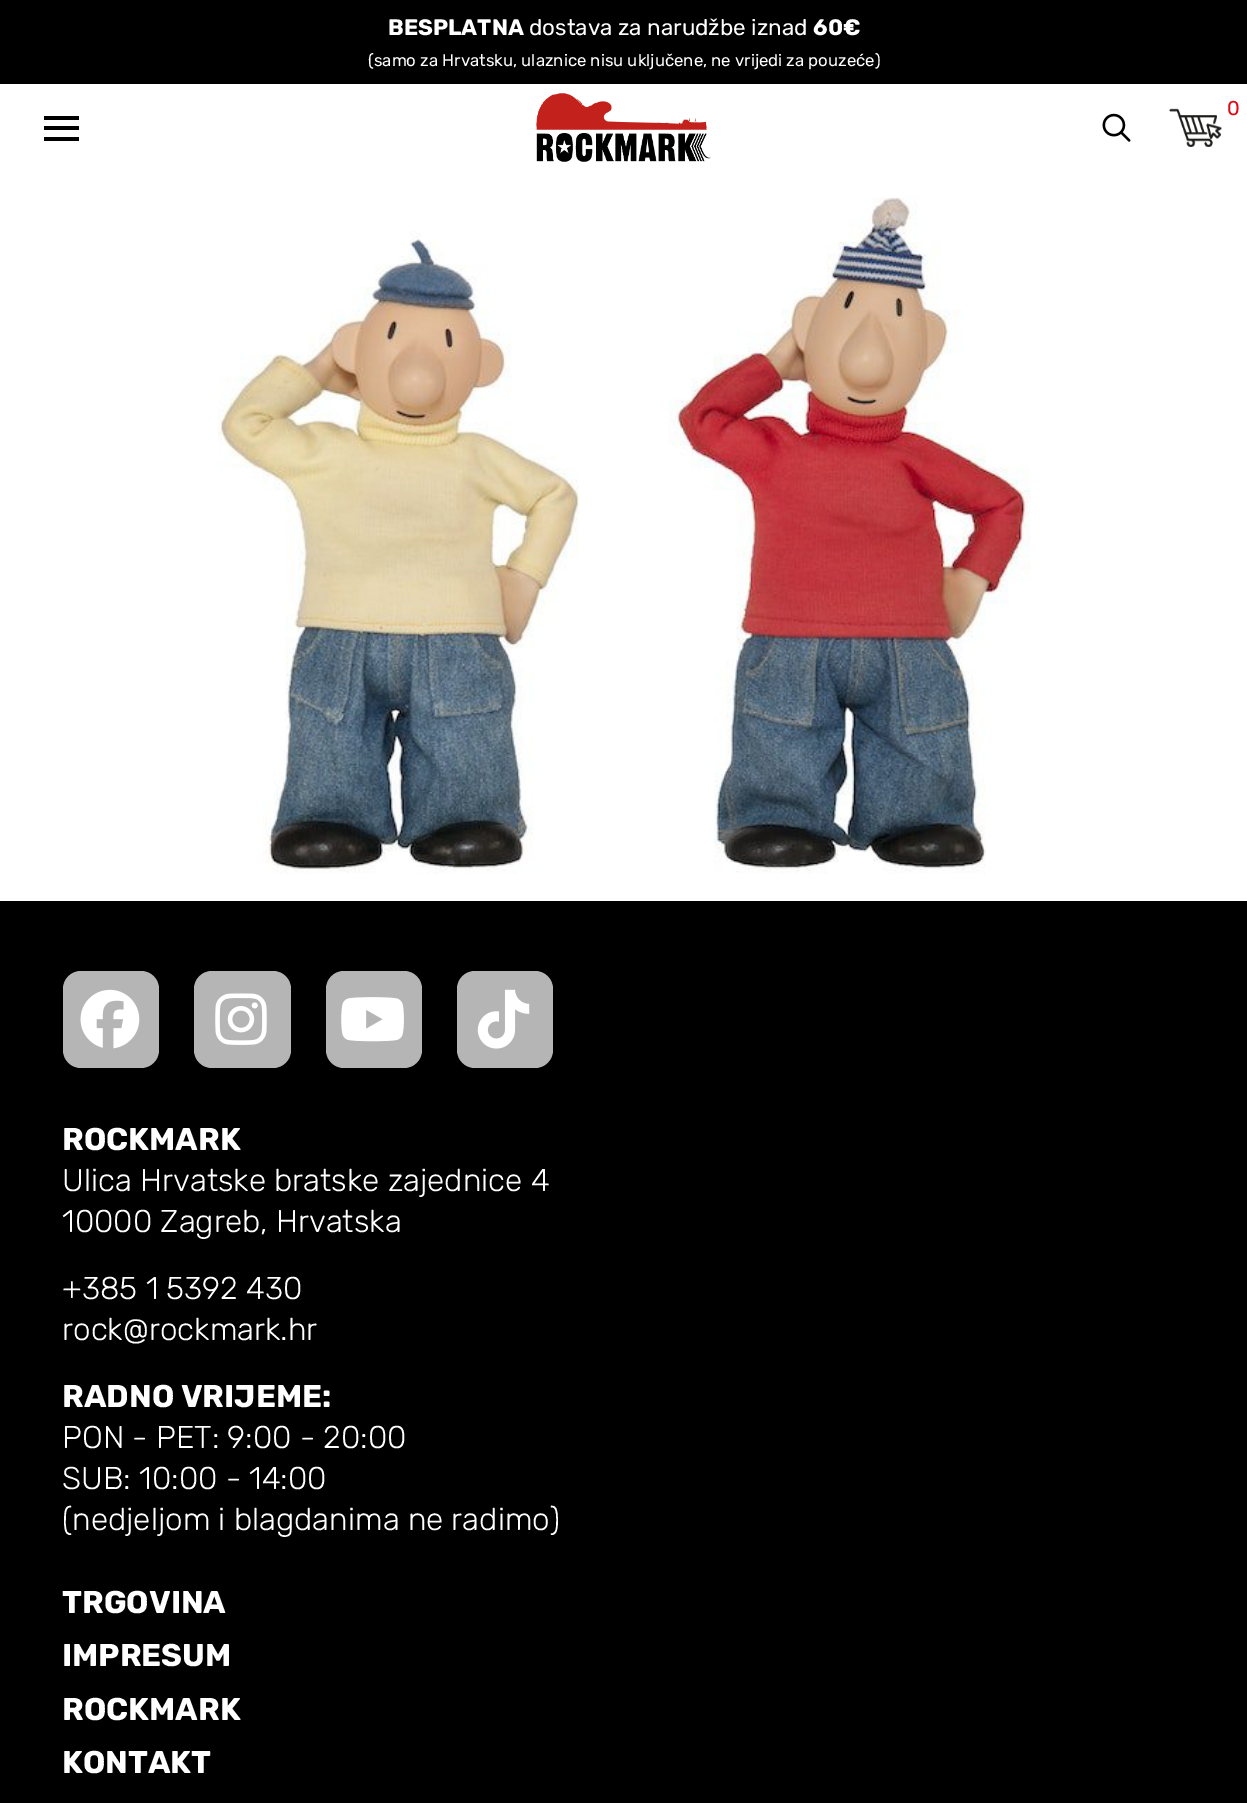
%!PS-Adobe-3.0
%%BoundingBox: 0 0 1247 1803
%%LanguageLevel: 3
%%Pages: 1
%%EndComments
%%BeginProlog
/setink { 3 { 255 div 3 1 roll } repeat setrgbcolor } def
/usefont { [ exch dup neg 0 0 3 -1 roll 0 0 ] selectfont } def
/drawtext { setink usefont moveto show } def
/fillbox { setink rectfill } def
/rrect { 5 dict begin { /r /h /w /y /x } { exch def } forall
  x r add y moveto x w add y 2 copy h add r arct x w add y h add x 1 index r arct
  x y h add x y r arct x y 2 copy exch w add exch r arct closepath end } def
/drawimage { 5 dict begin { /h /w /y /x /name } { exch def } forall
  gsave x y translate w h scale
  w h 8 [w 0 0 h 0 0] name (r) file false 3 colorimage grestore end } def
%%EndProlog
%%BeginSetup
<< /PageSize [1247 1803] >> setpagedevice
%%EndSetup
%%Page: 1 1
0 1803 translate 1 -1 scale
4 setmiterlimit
0 0 1247 1803 255 255 255 fillbox
0 0 1247 84 0 0 0 fillbox
(BESPLATNA) 388 35 /Rubik-Light 22.4 255 255 255 drawtext
(dostava za narudžbe iznad) 529 35 /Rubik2-Light 22.4 255 255 255 drawtext
(60€) 813 35 /Rubik-Light 22.4 255 255 255 drawtext
(\(samo za Hrvatsku, ulaznice nisu uključene, ne vrijedi za pouzeće\)) 368 66 /Rubik2-Light 16.8 255 255 255 drawtext
(assets/img1.rgb) 536 93 175 69 drawimage
(assets/img2.rgb) 1169 108 53 39 drawimage
(0) 1227 115 /Rubik2-Light 20 227 6 19 drawtext
44 116 35 4 0 0 0 fillbox
44 126 35 4 0 0 0 fillbox
44 137 35 4 0 0 0 fillbox
(assets/img3.rgb) 1102 113 29 29 drawimage
(assets/img4.rgb) 218 197 813 677 drawimage
0 901 1247 902 0 0 0 fillbox
181 181 181 setink
63 971 96 97 18 rrect fill
(assets/img5.rgb) 80 989 60 60 drawimage
194 971 97 97 18 rrect fill
(assets/img6.rgb) 215 993 52 52 drawimage
326 971 96 97 18 rrect fill
(assets/img7.rgb) 341 997 63 45 drawimage
457 971 96 97 18 rrect fill
(assets/img8.rgb) 477 989 53 60 drawimage
(ROCKMARK) 62 1150 /Rubik-Light 31.5 255 255 255 drawtext
(Ulica Hrvatske bratske zajednice 4) 62 1191 /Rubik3-Light 31.5 255 255 255 drawtext
(10000 Zagreb, Hrvatska) 62 1232 /Rubik3-Light 31.5 255 255 255 drawtext
(+385 1 5392 430) 62 1299 /Rubik3-Light 31.5 255 255 255 drawtext
(rock@rockmark.hr) 62 1340 /Rubik3-Light 31.5 255 255 255 drawtext
(RADNO VRIJEME:) 62 1407 /Rubik-Light 31.5 255 255 255 drawtext
(PON - PET: 9:00 - 20:00) 62 1448 /Rubik3-Light 31.5 255 255 255 drawtext
(SUB: 10:00 - 14:00) 62 1489 /Rubik3-Light 31.5 255 255 255 drawtext
(\(nedjeljom i blagdanima ne radimo\)) 62 1530 /Rubik3-Light 31.5 255 255 255 drawtext
(TRGOVINA) 62 1613 /Rubik-Light 31.5 255 255 255 drawtext
(IMPRESUM) 62 1666 /Rubik-Light 31.5 255 255 255 drawtext
(ROCKMARK) 62 1720 /Rubik-Light 31.5 255 255 255 drawtext
(KONTAKT) 62 1773 /Rubik-Light 31.5 255 255 255 drawtext
showpage
%%EOF
